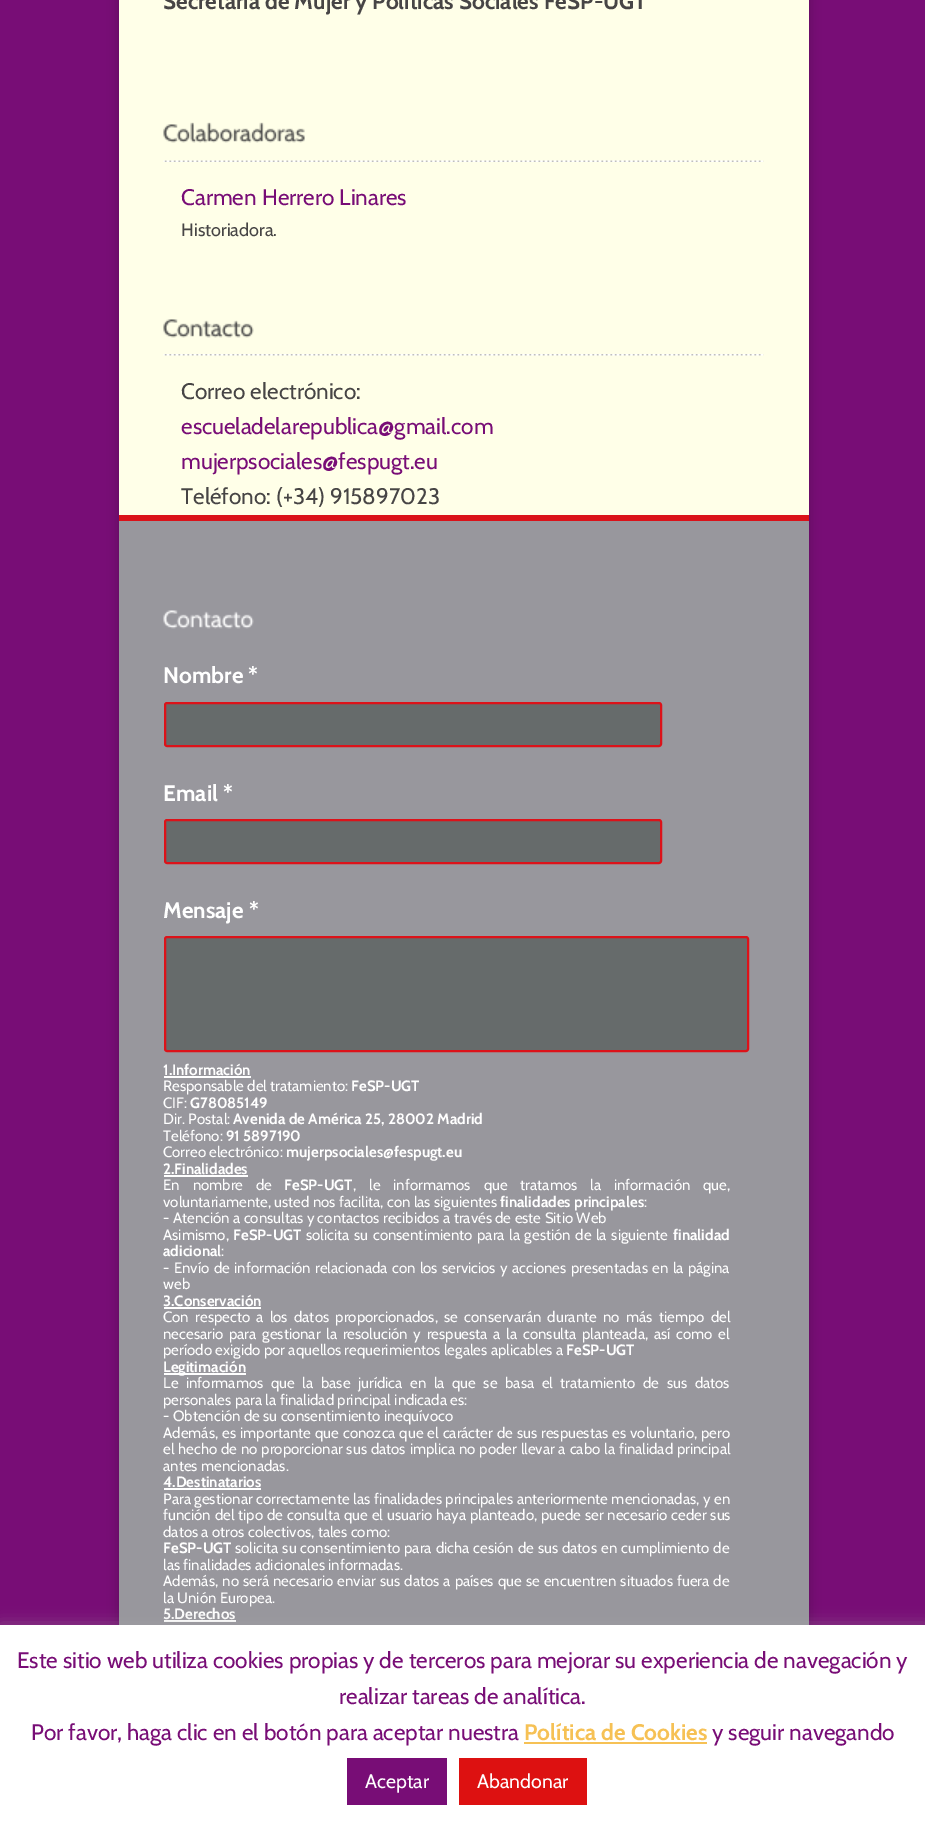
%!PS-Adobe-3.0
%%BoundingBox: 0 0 925 1822
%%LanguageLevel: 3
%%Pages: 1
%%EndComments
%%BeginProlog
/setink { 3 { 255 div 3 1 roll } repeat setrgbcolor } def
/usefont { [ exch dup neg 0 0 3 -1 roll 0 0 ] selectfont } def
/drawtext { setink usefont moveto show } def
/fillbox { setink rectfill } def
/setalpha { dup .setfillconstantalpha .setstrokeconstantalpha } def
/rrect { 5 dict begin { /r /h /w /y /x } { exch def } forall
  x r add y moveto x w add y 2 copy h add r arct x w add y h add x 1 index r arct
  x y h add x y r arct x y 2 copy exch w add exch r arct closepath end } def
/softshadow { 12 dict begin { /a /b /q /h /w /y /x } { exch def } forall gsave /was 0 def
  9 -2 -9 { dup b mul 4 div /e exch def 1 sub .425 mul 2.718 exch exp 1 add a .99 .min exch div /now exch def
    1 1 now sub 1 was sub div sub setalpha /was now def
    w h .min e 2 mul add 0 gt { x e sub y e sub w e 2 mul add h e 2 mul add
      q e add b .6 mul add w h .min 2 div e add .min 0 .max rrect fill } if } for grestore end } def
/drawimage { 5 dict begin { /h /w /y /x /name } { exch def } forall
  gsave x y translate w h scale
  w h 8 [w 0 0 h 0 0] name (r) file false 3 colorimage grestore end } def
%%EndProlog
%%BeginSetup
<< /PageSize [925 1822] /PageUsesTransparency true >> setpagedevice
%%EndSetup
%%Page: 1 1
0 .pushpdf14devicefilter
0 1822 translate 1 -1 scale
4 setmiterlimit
0 0 925 1822 120 13 118 fillbox
0 0 0 setink
119 -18 690 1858 0 6 0.2 softshadow
119 0 690 515 255 255 232 fillbox
(Secretaría de Mujer y Políticas Sociales FeSP-UGT) 163 9 /Cabin-Bold 22.5 71 69 69 drawtext
(assets/img1.rgb) 163 160 601 2 drawimage
(assets/img2.rgb) 163 122 142 21 drawimage
(Carmen Herrero Linares) 181 205 /Cabin-Regular 22.5 120 13 118 drawtext
(Historiadora.) 181 236 /Cabin-Regular 18 71 69 69 drawtext
(assets/img3.rgb) 163 354 601 2 drawimage
(assets/img4.rgb) 163 319 91 19 drawimage
(Correo electrónico:) 181 399 /Cabin-Regular 22.5 71 69 69 drawtext
(escueladelarepublica@gmail.com) 181 434 /Cabin-Regular 22.5 120 13 118 drawtext
(mujerpsociales@fespugt.eu) 181 469 /Cabin-Regular 22.5 120 13 118 drawtext
(Teléfono: \(+34\) 915897023) 181 504 /Cabin-Regular 22.5 71 69 69 drawtext
119 515 690 6 218 18 25 fillbox
119 521 690 1104 152 151 157 fillbox
(assets/img5.rgb) 163 610 91 19 drawimage
(Nombre *) 163 683 /Cabin-Bold 22.5 255 255 255 drawtext
102 107 107 setink
165 703 496 43 2 rrect gsave fill grestore
220 18 25 setink
2 setlinewidth
stroke
(Email *) 163 801 /Cabin-Bold 22.5 255 255 255 drawtext
102 107 107 setink
165 820 496 43 2 rrect gsave fill grestore
220 18 25 setink
stroke
(Mensaje *) 163 918 /Cabin-Bold 22.5 255 255 255 drawtext
102 107 107 setink
165 937 583 114 2 rrect gsave fill grestore
220 18 25 setink
stroke
(1.Información) 163 1075 /Cabin-Bold 15 255 255 255 drawtext
164 1076 87 2 255 255 255 fillbox
(Responsable del tratamiento:) 163 1091 /Cabin-Regular 15 255 255 255 drawtext
(FeSP-UGT) 351 1091 /Cabin-Bold 15 255 255 255 drawtext
(CIF:) 163 1108 /Cabin-Regular 15 255 255 255 drawtext
(G78085149) 190 1108 /Cabin-Bold 15 255 255 255 drawtext
(Dir. Postal:) 163 1124 /Cabin-Regular 15 255 255 255 drawtext
(Avenida de América 25, 28002 Madrid) 233 1124 /Cabin-Bold 15 255 255 255 drawtext
(Teléfono:) 163 1141 /Cabin-Regular 15 255 255 255 drawtext
(91 5897190) 226 1141 /Cabin-Bold 15 255 255 255 drawtext
(Correo electrónico:) 163 1157 /Cabin-Regular 15 255 255 255 drawtext
(mujerpsociales@fespugt.eu) 286 1157 /Cabin-Bold 15 255 255 255 drawtext
(2.Finalidades) 163 1174 /Cabin-Bold 15 255 255 255 drawtext
164 1175 84 2 255 255 255 fillbox
/Cabin-Regular 15 usefont
163 1190 moveto 9.5 0 32 (En nombre de) widthshow
(FeSP-UGT) 284 1190 /Cabin-Bold 15 255 255 255 drawtext
/Cabin-Regular 15 usefont
353 1190 moveto 9.5 0 32 (, le informamos que tratamos la información que,) widthshow
(voluntariamente, usted nos facilita, con las siguientes) 163 1207 /Cabin-Regular 15 255 255 255 drawtext
(finalidades principales) 500 1207 /Cabin-Bold 15 255 255 255 drawtext
(:) 644 1207 /Cabin-Regular 15 255 255 255 drawtext
(- Atención a consultas y contactos recibidos a través de este Sitio Web) 163 1223 /Cabin-Regular 15 255 255 255 drawtext
(Asimismo,) 163 1240 /Cabin-Regular 15 255 255 255 drawtext
(FeSP-UGT) 233 1240 /Cabin-Bold 15 255 255 255 drawtext
/Cabin-Regular 15 usefont
306 1240 moveto 1.25 0 32 (solicita su consentimiento para la gestión de la siguiente) widthshow
(finalidad) 673 1240 /Cabin-Bold 15 255 255 255 drawtext
(adicional) 163 1256 /Cabin-Bold 15 255 255 255 drawtext
(:) 221 1256 /Cabin-Regular 15 255 255 255 drawtext
163 1273 moveto 1 0 32 (- Envío de información relacionada con los servicios y acciones presentadas en la página) widthshow
(web) 163 1289 /Cabin-Regular 15 255 255 255 drawtext
(3.Conservación) 163 1306 /Cabin-Bold 15 255 255 255 drawtext
164 1307 97 2 255 255 255 fillbox
/Cabin-Regular 15 usefont
163 1322 moveto 2.9 0 32 (Con respecto a los datos proporcionados, se conservarán durante no más tiempo del) widthshow
163 1339 moveto 2.4 0 32 (necesario para gestionar la resolución y respuesta a la consulta planteada, así como el) widthshow
(período exigido por aquellos requerimientos legales aplicables a) 163 1355 /Cabin-Regular 15 255 255 255 drawtext
(FeSP-UGT) 566 1355 /Cabin-Bold 15 255 255 255 drawtext
164 1373 82 2 255 255 255 fillbox
(Legitimación) 163 1372 /Cabin-Bold 15 255 255 255 drawtext
/Cabin-Regular 15 usefont
163 1388 moveto 4.25 0 32 (Le informamos que la base jurídica en la que se basa el tratamiento de sus datos) widthshow
(personales para la finalidad principal indicada es:) 163 1405 /Cabin-Regular 15 255 255 255 drawtext
(- Obtención de su consentimiento inequívoco) 163 1421 /Cabin-Regular 15 255 255 255 drawtext
163 1438 moveto 0.6 0 32 (Además, es importante que conozca que el carácter de sus respuestas es voluntario, pero) widthshow
163 1454 moveto 0.5 0 32 (el hecho de no proporcionar sus datos implica no poder llevar a cabo la finalidad principal) widthshow
(antes mencionadas.) 163 1471 /Cabin-Regular 15 255 255 255 drawtext
(4.Destinatarios) 163 1487 /Cabin-Bold 15 255 255 255 drawtext
164 1488 97 2 255 255 255 fillbox
/Cabin-Regular 15 usefont
163 1504 moveto 0.25 0 32 (Para gestionar correctamente las finalidades principales anteriormente mencionadas, y en) widthshow
163 1520 moveto 0.5 0 32 (función del tipo de consulta que el usuario haya planteado, puede ser necesario ceder sus) widthshow
(datos a otros colectivos, tales como:) 163 1537 /Cabin-Regular 15 255 255 255 drawtext
(FeSP-UGT) 163 1553 /Cabin-Bold 15 255 255 255 drawtext
/Cabin-Regular 15 usefont
235 1553 moveto 0.6 0 32 (solicita su consentimiento para dicha cesión de sus datos en cumplimiento de) widthshow
(las finalidades adicionales informadas.) 163 1570 /Cabin-Regular 15 255 255 255 drawtext
163 1586 moveto 0.75 0 32 (Además, no será necesario enviar sus datos a países que se encuentren situados fuera de) widthshow
(la Unión Europea.) 163 1603 /Cabin-Regular 15 255 255 255 drawtext
(5.Derechos) 163 1619 /Cabin-Bold 15 255 255 255 drawtext
164 1620 72 2 255 255 255 fillbox
172 171 171 setink
0 1623 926 198 0 7.5 0.3 softshadow
0 1625 925 197 255 255 255 fillbox
(Este sitio web utiliza cookies propias y de terceros para mejorar su experiencia de navegación y) 17 1668 /Cabin-Regular 22.5 120 13 118 drawtext
(realizar tareas de analítica.) 339 1704 /Cabin-Regular 22.5 120 13 118 drawtext
(Por favor, haga clic en el botón para aceptar nuestra) 31 1740 /Cabin-Regular 22.5 120 13 118 drawtext
(Política de Cookies) 524 1740 /Cabin-Bold 22.5 246 193 85 drawtext
524 1742 183 2 246 193 85 fillbox
(y seguir navegando) 712 1740 /Cabin-Regular 22.5 120 13 118 drawtext
347 1758 100 47 120 13 118 fillbox
(Aceptar) 365 1788 /Cabin-Regular 19.5 255 255 255 drawtext
459 1758 128 47 221 17 17 fillbox
(Abandonar) 477 1788 /Cabin-Regular 19.5 255 255 255 drawtext
.poppdf14devicefilter showpage
%%EOF
